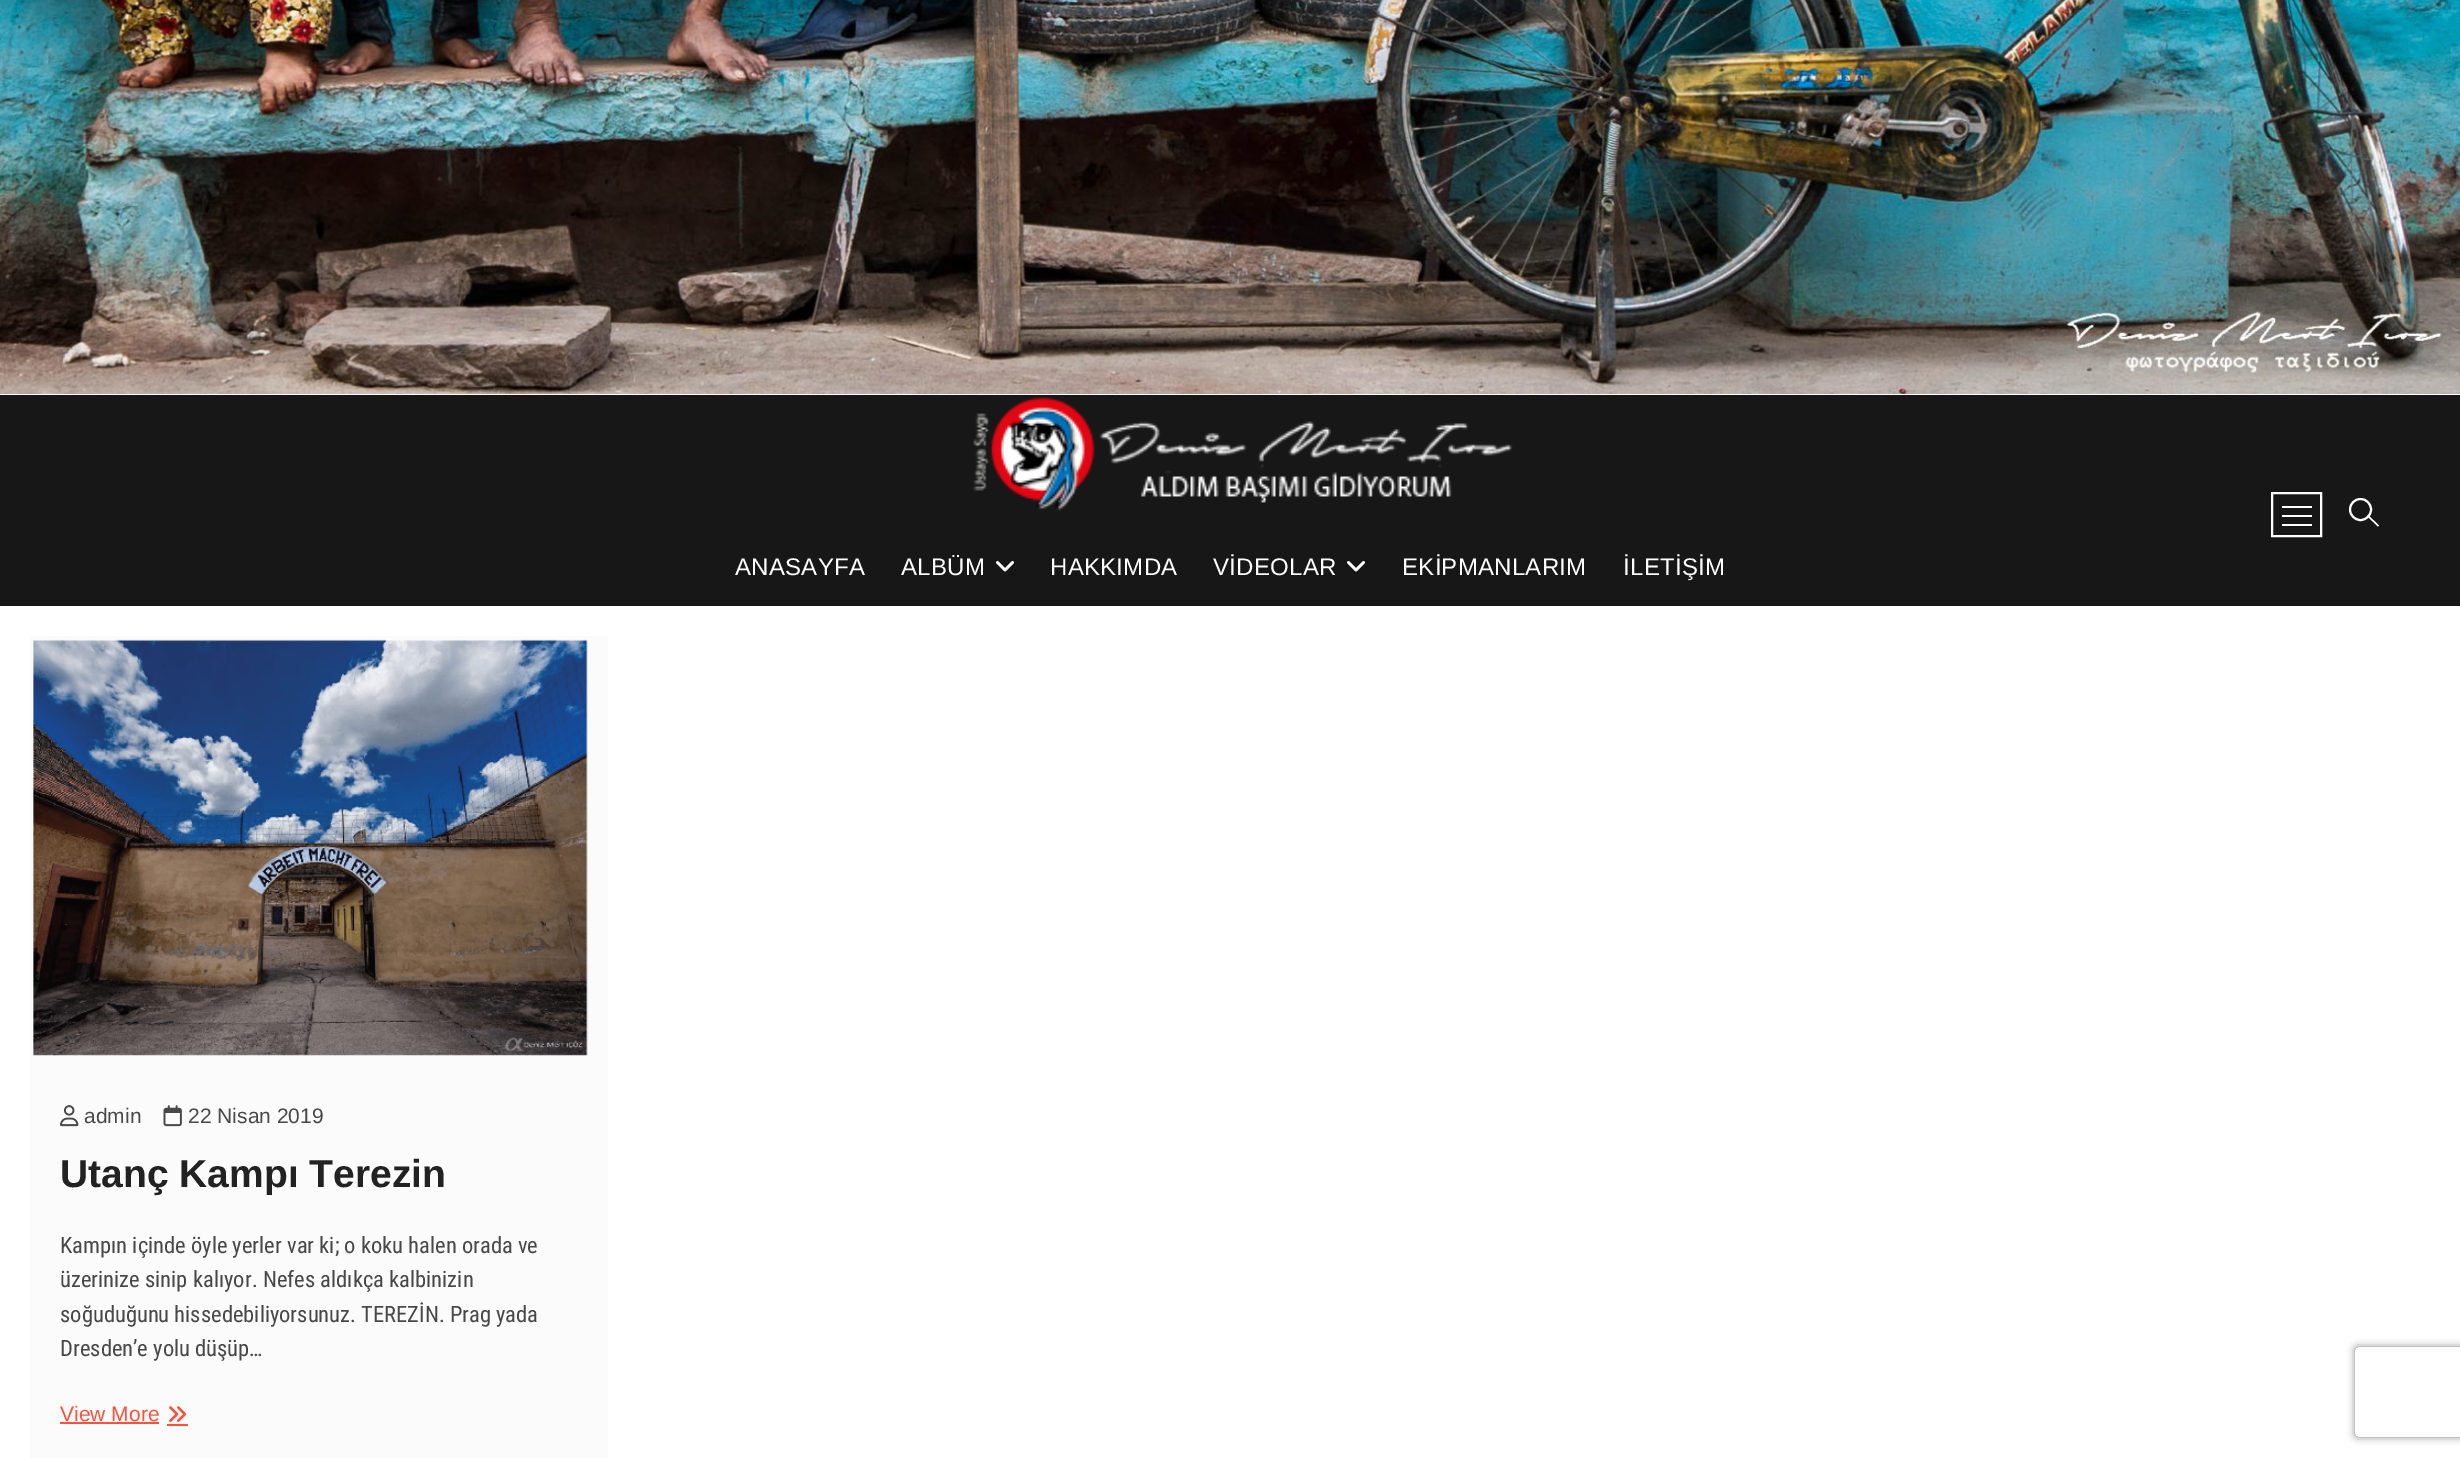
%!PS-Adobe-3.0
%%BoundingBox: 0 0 2460 1458
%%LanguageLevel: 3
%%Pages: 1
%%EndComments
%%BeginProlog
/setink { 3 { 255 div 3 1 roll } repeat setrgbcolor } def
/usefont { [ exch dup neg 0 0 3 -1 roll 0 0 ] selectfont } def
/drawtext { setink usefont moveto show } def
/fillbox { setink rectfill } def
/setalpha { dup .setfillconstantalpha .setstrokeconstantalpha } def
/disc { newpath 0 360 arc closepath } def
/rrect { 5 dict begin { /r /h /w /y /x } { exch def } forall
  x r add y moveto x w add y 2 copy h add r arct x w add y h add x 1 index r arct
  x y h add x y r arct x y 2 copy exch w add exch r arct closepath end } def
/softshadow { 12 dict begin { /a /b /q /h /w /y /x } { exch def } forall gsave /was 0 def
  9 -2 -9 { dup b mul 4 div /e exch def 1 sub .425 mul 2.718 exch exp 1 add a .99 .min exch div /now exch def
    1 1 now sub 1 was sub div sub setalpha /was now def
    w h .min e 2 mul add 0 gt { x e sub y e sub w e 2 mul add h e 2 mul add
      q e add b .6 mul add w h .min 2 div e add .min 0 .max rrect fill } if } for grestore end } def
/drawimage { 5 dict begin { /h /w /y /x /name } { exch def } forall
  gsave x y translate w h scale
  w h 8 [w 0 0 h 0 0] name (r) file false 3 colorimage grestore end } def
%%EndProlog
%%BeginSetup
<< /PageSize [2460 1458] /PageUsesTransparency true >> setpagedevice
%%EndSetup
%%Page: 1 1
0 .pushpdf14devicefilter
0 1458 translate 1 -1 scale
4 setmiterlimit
0 0 2460 1458 255 255 255 fillbox
(assets/img1.rgb) 0 0 2460 394 drawimage
0 395 2460 211 23 23 23 fillbox
(assets/img2.rgb) 973 397 540 114 drawimage
255 255 255 setink
2 setlinewidth
2272 493 49 43 rectstroke
2282 515 30 2 255 255 255 fillbox
2282 506 30 2 255 255 255 fillbox
2282 524 30 2 255 255 255 fillbox
2360.5 509.5 10.5 disc stroke
2367 516 moveto 2368 515 lineto 2379 525.5 lineto 2378 526.5 lineto closepath fill
/LiberationSans-Regular 24 usefont
735 575 moveto 0.25 0 (ANASAYFA) ashow
901 575 moveto 0.25 0 (ALBÜM) ashow
(assets/img3.rgb) 996 561 18 11 drawimage
1050 575 moveto 0.25 0 (HAKKIMDA) ashow
1213 575 moveto 0.25 0 (VİDEOLAR) ashow
(assets/img3.rgb) 1347 561 18 11 drawimage
1402 575 moveto 0.25 0 (EKİPMANLARIM) ashow
1623 575 moveto 0.25 0 (İLETİŞİM) ashow
30 636 578 822 251 251 251 fillbox
(assets/img4.rgb) 33 639 555 417 drawimage
(assets/img5.rgb) 60 1105 19 22 drawimage
(admin) 84 1123 /LiberationSans-Regular 21 72 72 72 drawtext
(assets/img6.rgb) 163 1105 19 22 drawimage
(22 Nisan 2019) 188 1123 /LiberationSans-Regular 21 72 72 72 drawtext
(Utanç Kampı Terezin) 60 1187 /LiberationSans-Bold 39 34 34 34 drawtext
(Kampın içinde öyle yerler var ki; o koku halen orada ve) 60 1253 /RobotoCondensed-Regular 22.5 72 72 72 drawtext
(üzerinize sinip kalıyor. Nefes aldıkça kalbinizin) 60 1287 /RobotoCondensed-Regular 22.5 72 72 72 drawtext
(soğuduğunu hissedebiliyorsunuz. TEREZİN. Prag yada) 60 1322 /RobotoCondensed-Regular 22.5 72 72 72 drawtext
(Dresden’e yolu düşüp…) 60 1356 /RobotoCondensed-Regular 22.5 72 72 72 drawtext
(View More) 60 1421 /LiberationSans-Regular 21 253 81 59 drawtext
60 1422 99 2 253 81 59 fillbox
(assets/img7.rgb) 169 1406 18 16 drawimage
167 1424 21 2 253 81 59 fillbox
gsave
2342 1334 moveto 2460 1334 lineto 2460 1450 lineto 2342 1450 lineto closepath 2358 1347 moveto 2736 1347 lineto 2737.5 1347 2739 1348.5 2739 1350 curveto 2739 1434 lineto 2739 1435.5 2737.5 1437 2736 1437 curveto 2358 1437 lineto 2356.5 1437 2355 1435.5 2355 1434 curveto 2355 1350 lineto 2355 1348.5 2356.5 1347 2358 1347 curveto closepath eoclip newpath
128 128 128 setink
2355 1347 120 90 3 4 1 softshadow
grestore
.poppdf14devicefilter showpage
%%EOF
